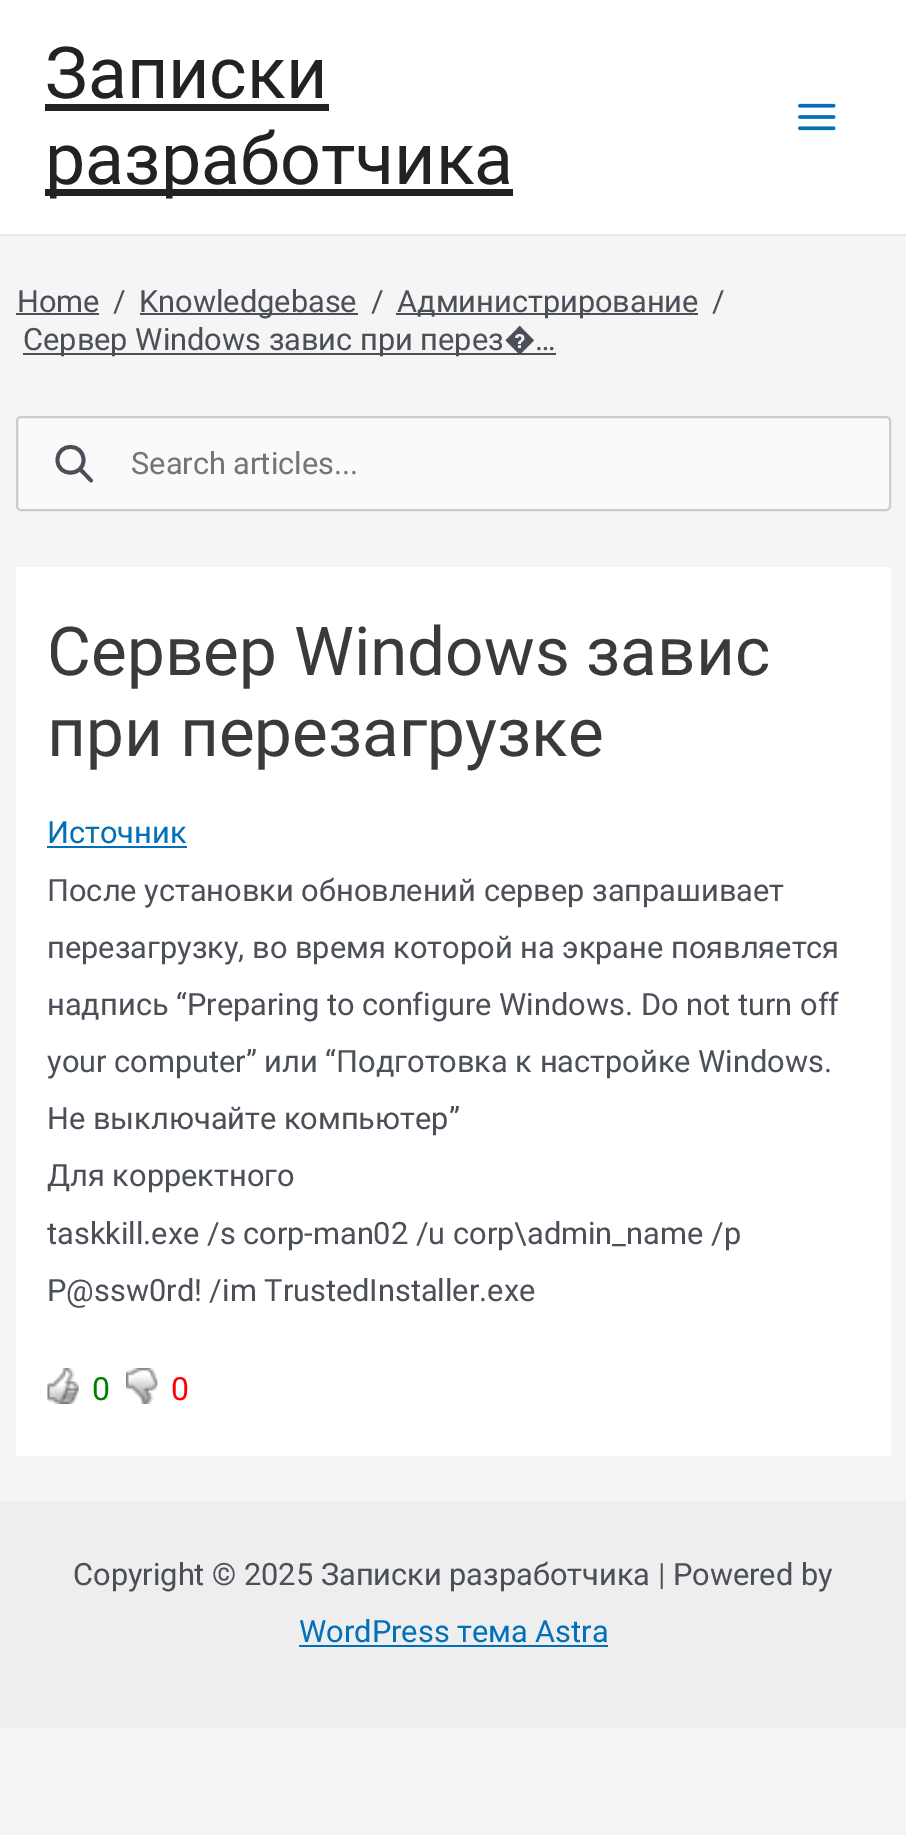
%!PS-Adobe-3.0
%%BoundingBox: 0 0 906 1835
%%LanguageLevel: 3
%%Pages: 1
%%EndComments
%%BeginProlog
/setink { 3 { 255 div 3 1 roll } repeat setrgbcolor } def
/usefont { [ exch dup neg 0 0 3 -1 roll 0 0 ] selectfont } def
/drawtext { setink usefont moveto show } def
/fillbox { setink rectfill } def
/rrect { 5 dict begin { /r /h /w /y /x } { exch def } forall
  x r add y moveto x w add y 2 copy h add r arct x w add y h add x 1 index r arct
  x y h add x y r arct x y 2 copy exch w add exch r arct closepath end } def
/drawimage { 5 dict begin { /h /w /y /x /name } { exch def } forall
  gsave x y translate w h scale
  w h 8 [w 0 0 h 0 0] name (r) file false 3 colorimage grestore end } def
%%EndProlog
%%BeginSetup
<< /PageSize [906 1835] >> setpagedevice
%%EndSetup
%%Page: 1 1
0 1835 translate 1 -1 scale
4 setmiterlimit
0 0 906 1835 245 245 245 fillbox
0 0 906 234 255 255 255 fillbox
0 234 906 2 234 234 234 fillbox
(Записки) 45 98 /Roboto-Regular 71.75 34 34 34 drawtext
45 104 284 7 34 34 34 fillbox
45 189 468 7 34 34 34 fillbox
(разработчика) 45 184 /Roboto-Regular 71.75 34 34 34 drawtext
(assets/img1.rgb) 798 103 38 28 drawimage
(Home) 17 312 /Roboto-Regular 30.75 75 79 88 drawtext
16 313 83 2 75 79 88 fillbox
(/) 113 312 /Roboto-Regular 30.75 75 79 88 drawtext
140 313 218 2 75 79 88 fillbox
(Knowledgebase) 139 312 /Roboto-Regular 30.75 75 79 88 drawtext
(/) 371 312 /Roboto-Regular 30.75 75 79 88 drawtext
396 313 302 2 75 79 88 fillbox
(Администрирование) 397 312 /Roboto-Regular 30.75 75 79 88 drawtext
(/) 712 312 /Roboto-Regular 30.75 75 79 88 drawtext
23 353 533 2 75 79 88 fillbox
(Сервер Windows завис при перез�…) 23 350 /Roboto-Regular 30.75 75 79 88 drawtext
250 250 250 setink
17 417 873 93 4 rrect gsave fill grestore
204 204 204 setink
2 setlinewidth
stroke
75 79 88 setink
3.8 setlinewidth
1 setlinecap
1 setlinejoin
91 480.5 moveto 80 469 lineto 83.5 460 moveto 83.5 477 57.5 477 57.5 460 curveto 57.5 442.5 83.5 442.5 83.5 460 curveto closepath stroke
(Search articles...) 131 474 /Roboto-Regular 30.75 117 117 117 drawtext
16 567 875 889 255 255 255 fillbox
(Сервер Windows завис) 47 675 /Roboto-Regular 67.5 58 58 58 drawtext
(при перезагрузке) 47 756 /Roboto-Regular 67.5 58 58 58 drawtext
(Источник) 47 843 /Roboto-Regular 30.75 1 112 185 drawtext
47 846 140 2 1 112 185 fillbox
(После установки обновлений сервер запрашивает) 47 901 /Roboto-Regular 30.75 75 79 88 drawtext
(перезагрузку, во время которой на экране появляется) 47 958 /Roboto-Regular 30.75 75 79 88 drawtext
(надпись “Preparing to configure Windows. Do not turn off) 47 1015 /Roboto-Regular 30.75 75 79 88 drawtext
(your computer” или “Подготовка к настройке Windows.) 47 1072 /Roboto-Regular 30.75 75 79 88 drawtext
(Не выключайте компьютер”) 47 1129 /Roboto-Regular 30.75 75 79 88 drawtext
(Для корректного) 47 1186 /Roboto-Regular 30.75 75 79 88 drawtext
(taskkill.exe /s corp-man02 /u corp\\admin_name /p) 47 1244 /Roboto-Regular 30.75 75 79 88 drawtext
(P@ssw0rd! /im TrustedInstaller.exe) 47 1301 /Roboto-Regular 30.75 75 79 88 drawtext
(assets/img2.rgb) 47 1368 32 36 drawimage
(0) 92 1400 /Roboto-Regular 32 0 128 0 drawtext
(assets/img3.rgb) 126 1368 32 36 drawimage
(0) 171 1400 /Roboto-Regular 32 255 0 0 drawtext
0 1501 906 227 238 238 238 fillbox
(Copyright © 2025 Записки разработчика | Powered by) 73 1585 /Roboto-Regular 30.75 75 79 88 drawtext
(WordPress тема Astra) 299 1642 /Roboto-Regular 30.75 1 112 185 drawtext
299 1645 309 2 1 112 185 fillbox
showpage
%%EOF
